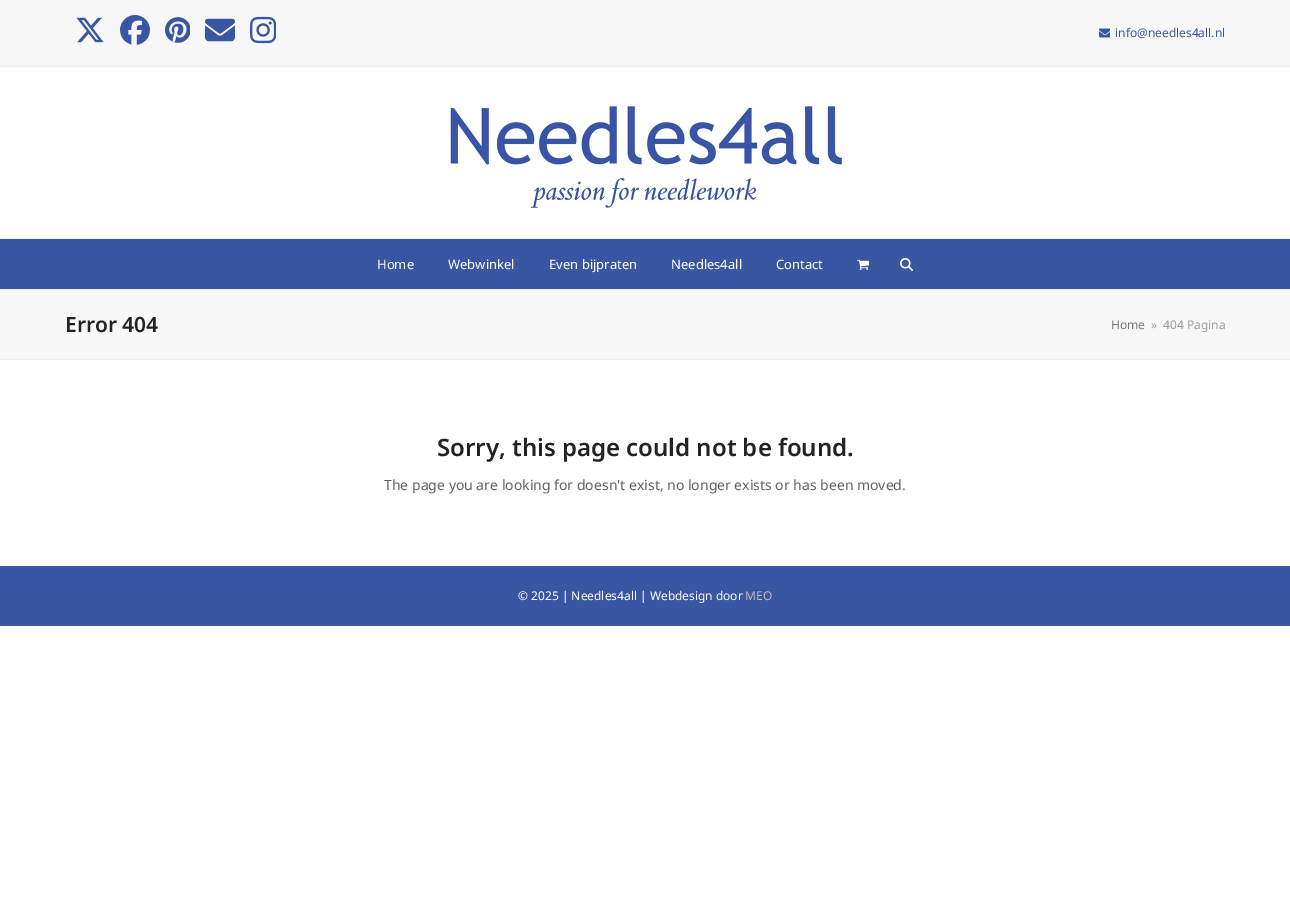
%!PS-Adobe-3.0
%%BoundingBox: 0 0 1290 917
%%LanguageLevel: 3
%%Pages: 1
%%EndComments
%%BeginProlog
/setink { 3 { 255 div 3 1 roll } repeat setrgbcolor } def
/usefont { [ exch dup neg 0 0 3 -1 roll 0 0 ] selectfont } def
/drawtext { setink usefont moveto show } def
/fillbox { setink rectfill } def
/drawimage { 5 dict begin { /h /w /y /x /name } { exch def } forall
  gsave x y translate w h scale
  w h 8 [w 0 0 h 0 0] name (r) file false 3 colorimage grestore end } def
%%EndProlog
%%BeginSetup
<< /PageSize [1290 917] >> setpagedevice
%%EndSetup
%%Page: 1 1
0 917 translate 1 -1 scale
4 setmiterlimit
0 0 1290 917 255 255 255 fillbox
0 0 1290 66 247 247 247 fillbox
0 66 1290 1 238 238 238 fillbox
(assets/img1.rgb) 76 17 28 26 drawimage
(assets/img2.rgb) 120 15 30 30 drawimage
(assets/img3.rgb) 165 17 25 26 drawimage
(assets/img4.rgb) 205 18 30 24 drawimage
(assets/img5.rgb) 250 16 26 28 drawimage
(assets/img6.rgb) 1099 28 11 10 drawimage
(info@needles4all.nl) 1115 37 /NotoSans-Regular 12 57 86 162 drawtext
(assets/img7.rgb) 445 105 400 103 drawimage
0 239 1290 50 57 86 162 fillbox
0 238 1290 1 238 238 238 fillbox
(Home) 377 269 /NotoSans-Regular 13 255 255 255 drawtext
(Webwinkel) 448 269 /NotoSans-Regular 13 255 255 255 drawtext
(Even bijpraten) 549 269 /NotoSans-Regular 13 255 255 255 drawtext
(Needles4all) 671 269 /NotoSans-Regular 13 255 255 255 drawtext
(Contact) 776 269 /NotoSans-Regular 13 255 255 255 drawtext
(assets/img8.rgb) 857 259 12 11 drawimage
(assets/img9.rgb) 900 258 13 13 drawimage
0 290 1290 69 247 247 247 fillbox
0 289 1290 1 238 238 238 fillbox
0 359 1290 1 238 238 238 fillbox
(Error 404) 65 332 /NotoSans-SemiBold 21 34 34 34 drawtext
(Home) 1111 329 /NotoSans-Regular 12 117 117 117 drawtext
(») 1151 329 /NotoSans-Regular 12 158 158 158 drawtext
(404 Pagina) 1163 329 /NotoSans-Regular 12 158 158 158 drawtext
(Sorry, this page could not be found.) 437 456 /NotoSans-SemiBold 24 34 34 34 drawtext
(The page you are looking for doesn't exist, no longer exists or has been moved.) 384 490 /NotoSans-Regular 14 97 97 97 drawtext
0 566 1290 60 57 86 162 fillbox
(© 2025 | Needles4all | Webdesign door) 518 600 /NotoSans-Regular 12 255 255 255 drawtext
(MEO) 745 600 /NotoSans-Regular 12 189 189 189 drawtext
showpage
%%EOF
